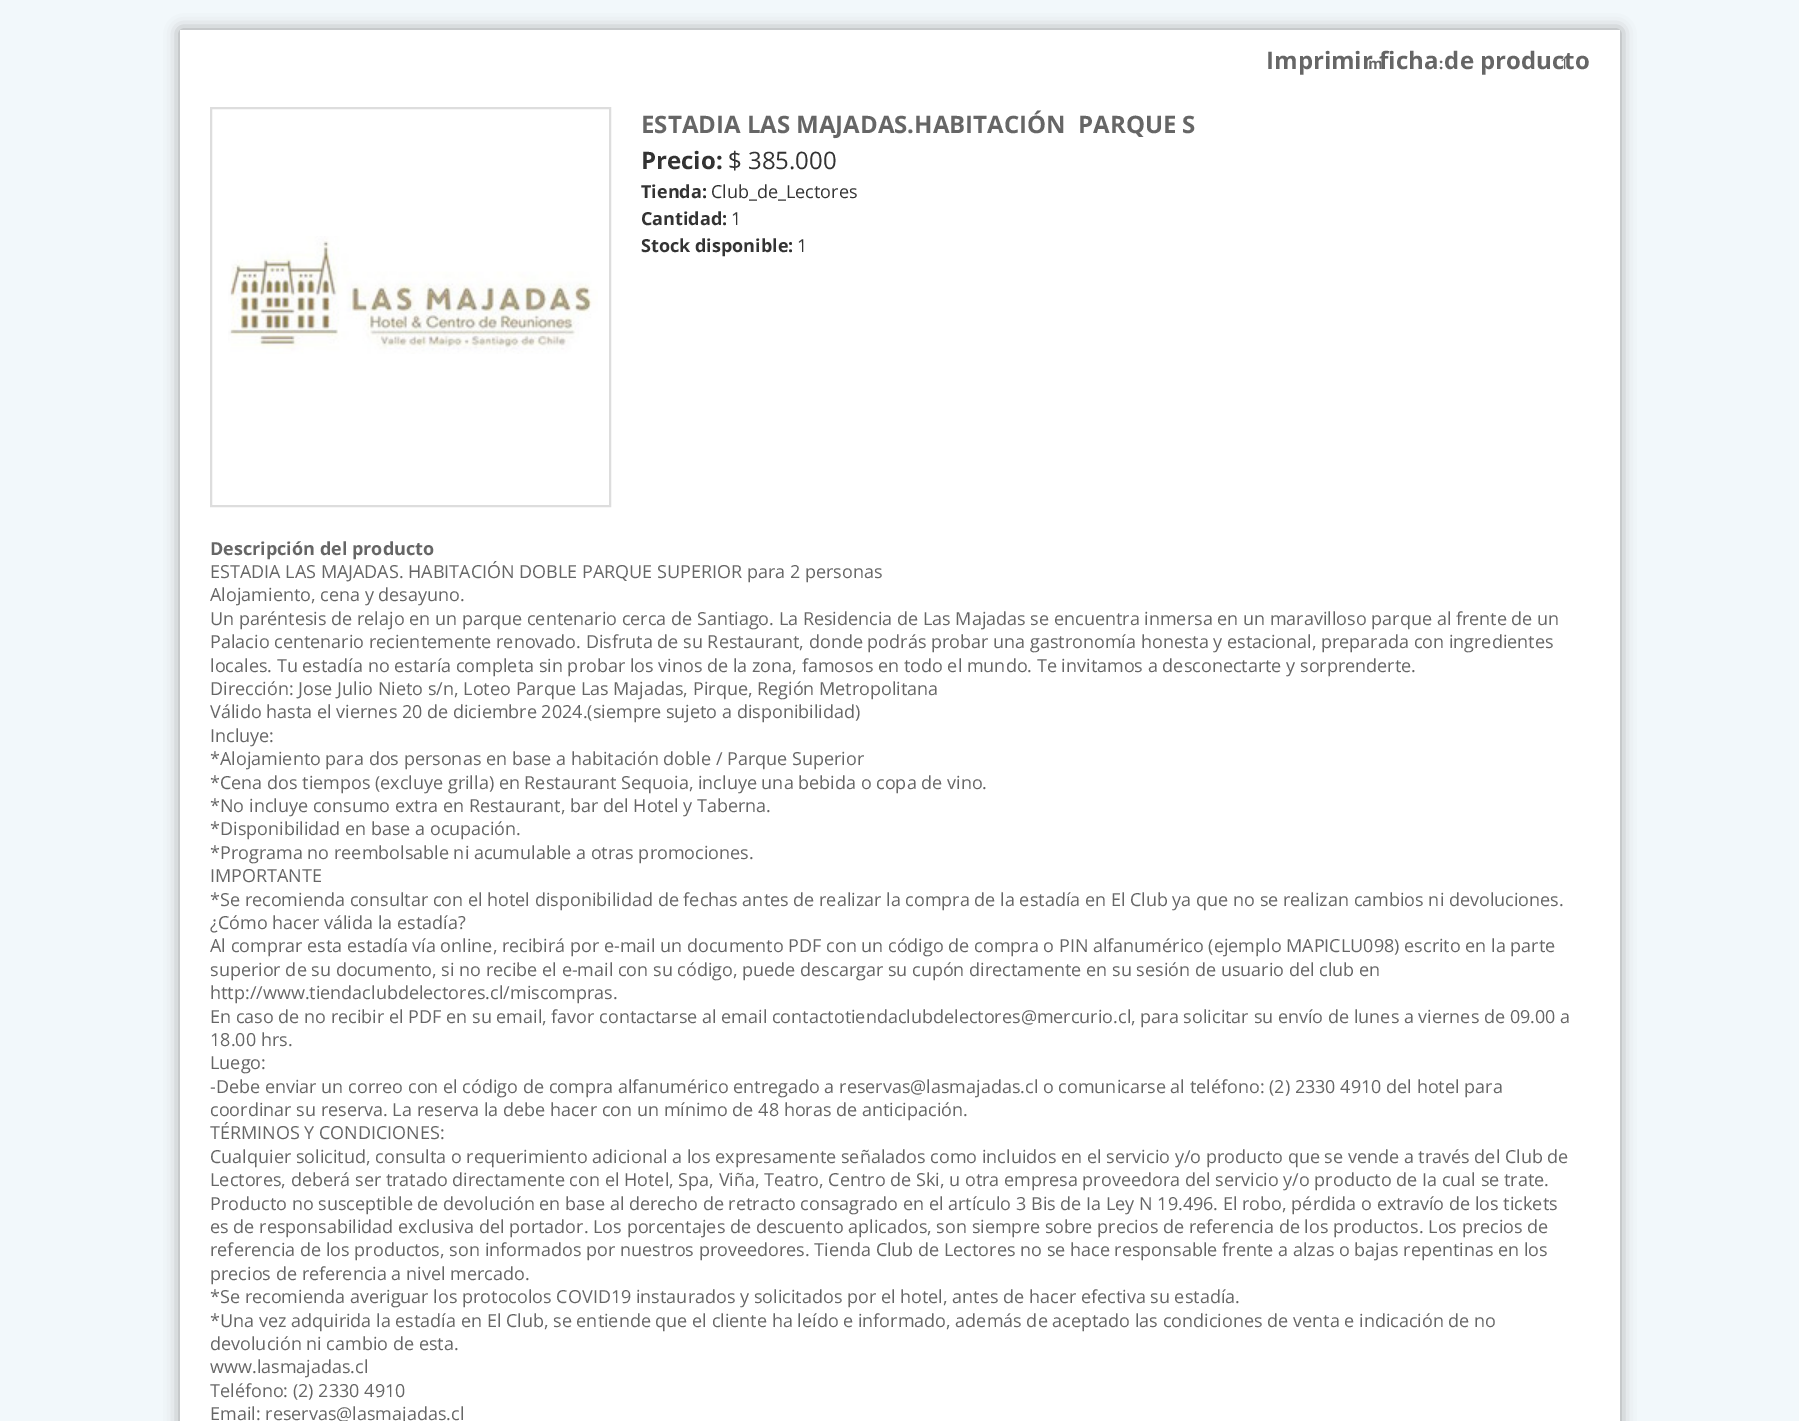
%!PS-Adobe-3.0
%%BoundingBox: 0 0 1799 1421
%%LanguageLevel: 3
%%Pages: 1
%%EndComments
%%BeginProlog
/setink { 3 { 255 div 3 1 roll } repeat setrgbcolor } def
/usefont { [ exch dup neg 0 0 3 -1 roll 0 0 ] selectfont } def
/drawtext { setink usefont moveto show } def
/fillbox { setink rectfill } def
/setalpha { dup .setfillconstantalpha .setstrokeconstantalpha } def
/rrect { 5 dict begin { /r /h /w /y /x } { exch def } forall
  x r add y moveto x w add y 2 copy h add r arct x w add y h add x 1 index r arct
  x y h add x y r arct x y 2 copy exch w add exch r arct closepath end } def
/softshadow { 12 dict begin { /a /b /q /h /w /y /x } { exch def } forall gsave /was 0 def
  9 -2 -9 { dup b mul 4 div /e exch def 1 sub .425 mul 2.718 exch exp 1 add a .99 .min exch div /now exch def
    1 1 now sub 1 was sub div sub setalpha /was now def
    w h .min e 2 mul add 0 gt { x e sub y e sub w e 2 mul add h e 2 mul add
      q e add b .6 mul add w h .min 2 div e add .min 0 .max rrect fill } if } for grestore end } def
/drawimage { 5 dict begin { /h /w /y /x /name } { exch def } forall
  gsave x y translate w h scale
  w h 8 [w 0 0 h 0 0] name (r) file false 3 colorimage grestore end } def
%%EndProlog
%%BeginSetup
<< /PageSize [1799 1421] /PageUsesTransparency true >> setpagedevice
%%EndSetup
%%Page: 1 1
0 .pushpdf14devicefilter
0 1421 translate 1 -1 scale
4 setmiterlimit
0 0 1799 1421 242 248 251 fillbox
153 153 153 setink
180 30 1440 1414 0 7.5 1 softshadow
180 30 1440 1391 255 255 255 fillbox
(Imprimir ficha de producto) 1266 69 /OpenSans-Bold 24 102 102 102 drawtext
(m) 1368 69 /OpenSans-Bold 15 102 102 102 drawtext
(:) 1439 69 /OpenSans-Bold 15 102 102 102 drawtext
(1) 1560 69 /OpenSans-Regular 15 102 102 102 drawtext
221 221 221 setink
2 setlinewidth
211 108 399 398 rectstroke
(assets/img1.rgb) 228 236 370 118 drawimage
(ESTADIA LAS MAJADAS.HABITACIÓN  PARQUE S) 641 133 /OpenSans-Bold 24 102 102 102 drawtext
(Precio:) 641 169 /OpenSans-Bold 24 51 51 51 drawtext
($ 385.000) 728 169 /OpenSans-Regular 24 51 51 51 drawtext
(Tienda:) 641 198 /OpenSans-Bold 18 51 51 51 drawtext
(Club_de_Lectores) 711 198 /OpenSans-Regular 18 51 51 51 drawtext
(Cantidad:) 641 225 /OpenSans-Bold 18 51 51 51 drawtext
(1) 731 225 /OpenSans-Regular 18 51 51 51 drawtext
(Stock disponible:) 641 252 /OpenSans-Bold 18 51 51 51 drawtext
(1) 797 252 /OpenSans-Regular 18 51 51 51 drawtext
(Descripción del producto) 210 555 /OpenSans-Bold 18 102 102 102 drawtext
(ESTADIA LAS MAJADAS. HABITACIÓN DOBLE PARQUE SUPERIOR para 2 personas) 210 578 /OpenSans-Regular 18 102 102 102 drawtext
(Alojamiento, cena y desayuno.) 210 601 /OpenSans-Regular 18 102 102 102 drawtext
(Un paréntesis de relajo en un parque centenario cerca de Santiago. La Residencia de Las Majadas se encuentra inmersa en un maravilloso parque al frente de un) 210 625 /OpenSans-Regular 18 102 102 102 drawtext
(Palacio centenario recientemente renovado. Disfruta de su Restaurant, donde podrás probar una gastronomía honesta y estacional, preparada con ingredientes) 210 648 /OpenSans-Regular 18 102 102 102 drawtext
(locales. Tu estadía no estaría completa sin probar los vinos de la zona, famosos en todo el mundo. Te invitamos a desconectarte y sorprenderte.) 210 672 /OpenSans-Regular 18 102 102 102 drawtext
(Dirección: Jose Julio Nieto s/n, Loteo Parque Las Majadas, Pirque, Región Metropolitana) 210 695 /OpenSans-Regular 18 102 102 102 drawtext
(Válido hasta el viernes 20 de diciembre 2024.\(siempre sujeto a disponibilidad\)) 210 718 /OpenSans-Regular 18 102 102 102 drawtext
(Incluye:) 210 742 /OpenSans-Regular 18 102 102 102 drawtext
(*Alojamiento para dos personas en base a habitación doble / Parque Superior) 210 765 /OpenSans-Regular 18 102 102 102 drawtext
(*Cena dos tiempos \(excluye grilla\) en Restaurant Sequoia, incluye una bebida o copa de vino.) 210 789 /OpenSans-Regular 18 102 102 102 drawtext
(*No incluye consumo extra en Restaurant, bar del Hotel y Taberna.) 210 812 /OpenSans-Regular 18 102 102 102 drawtext
(*Disponibilidad en base a ocupación.) 210 835 /OpenSans-Regular 18 102 102 102 drawtext
(*Programa no reembolsable ni acumulable a otras promociones.) 210 859 /OpenSans-Regular 18 102 102 102 drawtext
(IMPORTANTE) 210 882 /OpenSans-Regular 18 102 102 102 drawtext
(*Se recomienda consultar con el hotel disponibilidad de fechas antes de realizar la compra de la estadía en El Club ya que no se realizan cambios ni devoluciones.) 210 906 /OpenSans-Regular 18 102 102 102 drawtext
(¿Cómo hacer válida la estadía?) 210 929 /OpenSans-Regular 18 102 102 102 drawtext
(Al comprar esta estadía vía online, recibirá por e-mail un documento PDF con un código de compra o PIN alfanumérico \(ejemplo MAPICLU098\) escrito en la parte) 210 952 /OpenSans-Regular 18 102 102 102 drawtext
(superior de su documento, si no recibe el e-mail con su código, puede descargar su cupón directamente en su sesión de usuario del club en) 210 976 /OpenSans-Regular 18 102 102 102 drawtext
(http://www.tiendaclubdelectores.cl/miscompras.) 210 999 /OpenSans-Regular 18 102 102 102 drawtext
(En caso de no recibir el PDF en su email, favor contactarse al email contactotiendaclubdelectores@mercurio.cl, para solicitar su envío de lunes a viernes de 09.00 a) 210 1023 /OpenSans-Regular 18 102 102 102 drawtext
(18.00 hrs.) 210 1046 /OpenSans-Regular 18 102 102 102 drawtext
(Luego:) 210 1069 /OpenSans-Regular 18 102 102 102 drawtext
(-Debe enviar un correo con el código de compra alfanumérico entregado a reservas@lasmajadas.cl o comunicarse al teléfono: \(2\) 2330 4910 del hotel para) 210 1093 /OpenSans-Regular 18 102 102 102 drawtext
(coordinar su reserva. La reserva la debe hacer con un mínimo de 48 horas de anticipación.) 210 1116 /OpenSans-Regular 18 102 102 102 drawtext
(TÉRMINOS Y CONDICIONES:) 210 1139 /OpenSans-Regular 18 102 102 102 drawtext
(Cualquier solicitud, consulta o requerimiento adicional a los expresamente señalados como incluidos en el servicio y/o producto que se vende a través del Club de) 210 1163 /OpenSans-Regular 18 102 102 102 drawtext
(Lectores, deberá ser tratado directamente con el Hotel, Spa, Viña, Teatro, Centro de Ski, u otra empresa proveedora del servicio y/o producto de Ia cual se trate.) 210 1186 /OpenSans-Regular 18 102 102 102 drawtext
(Producto no susceptible de devolución en base al derecho de retracto consagrado en el artículo 3 Bis de Ia Ley N 19.496. El robo, pérdida o extravío de los tickets) 210 1210 /OpenSans-Regular 18 102 102 102 drawtext
(es de responsabilidad exclusiva del portador. Los porcentajes de descuento aplicados, son siempre sobre precios de referencia de los productos. Los precios de) 210 1233 /OpenSans-Regular 18 102 102 102 drawtext
(referencia de los productos, son informados por nuestros proveedores. Tienda Club de Lectores no se hace responsable frente a alzas o bajas repentinas en los) 210 1256 /OpenSans-Regular 18 102 102 102 drawtext
(precios de referencia a nivel mercado.) 210 1280 /OpenSans-Regular 18 102 102 102 drawtext
(*Se recomienda averiguar los protocolos COVID19 instaurados y solicitados por el hotel, antes de hacer efectiva su estadía.) 210 1303 /OpenSans-Regular 18 102 102 102 drawtext
(*Una vez adquirida la estadía en El Club, se entiende que el cliente ha leído e informado, además de aceptado las condiciones de venta e indicación de no) 210 1327 /OpenSans-Regular 18 102 102 102 drawtext
(devolución ni cambio de esta.) 210 1350 /OpenSans-Regular 18 102 102 102 drawtext
(www.lasmajadas.cl) 210 1373 /OpenSans-Regular 18 102 102 102 drawtext
(Teléfono: \(2\) 2330 4910) 210 1397 /OpenSans-Regular 18 102 102 102 drawtext
(Email: reservas@lasmajadas.cl) 210 1420 /OpenSans-Regular 18 102 102 102 drawtext
.poppdf14devicefilter showpage
%%EOF
